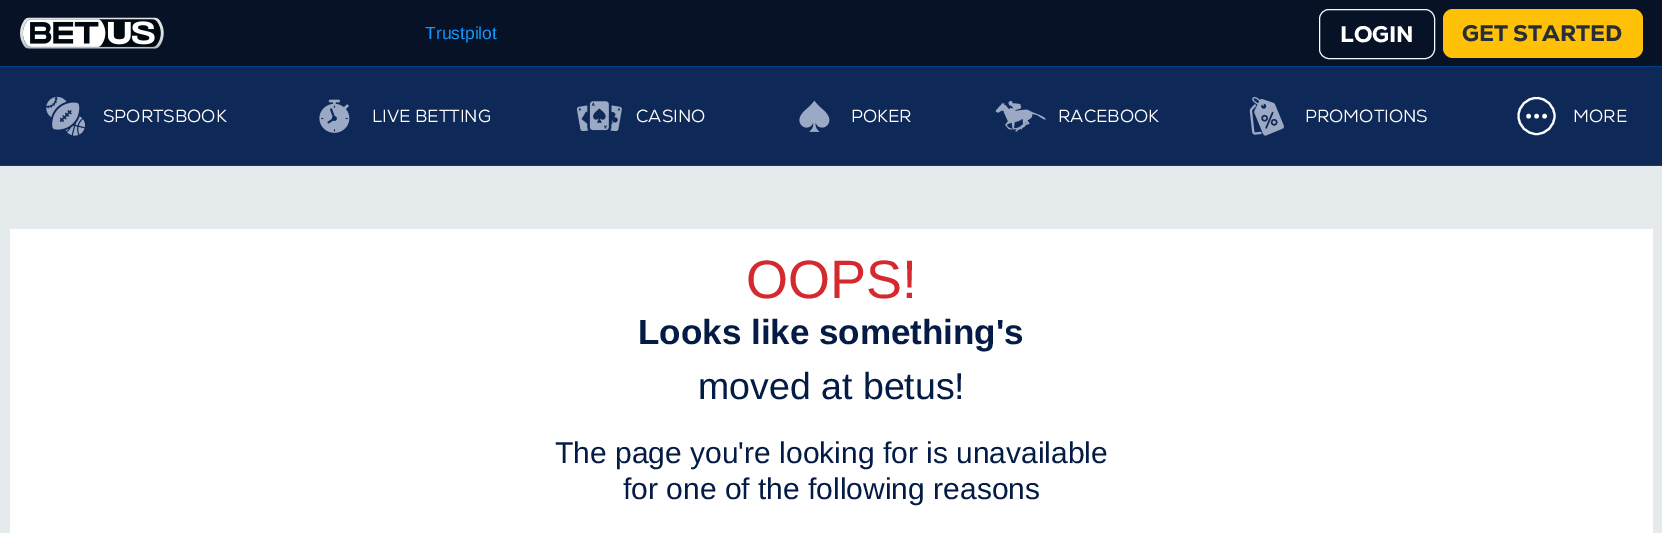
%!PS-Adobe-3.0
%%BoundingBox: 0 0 1662 533
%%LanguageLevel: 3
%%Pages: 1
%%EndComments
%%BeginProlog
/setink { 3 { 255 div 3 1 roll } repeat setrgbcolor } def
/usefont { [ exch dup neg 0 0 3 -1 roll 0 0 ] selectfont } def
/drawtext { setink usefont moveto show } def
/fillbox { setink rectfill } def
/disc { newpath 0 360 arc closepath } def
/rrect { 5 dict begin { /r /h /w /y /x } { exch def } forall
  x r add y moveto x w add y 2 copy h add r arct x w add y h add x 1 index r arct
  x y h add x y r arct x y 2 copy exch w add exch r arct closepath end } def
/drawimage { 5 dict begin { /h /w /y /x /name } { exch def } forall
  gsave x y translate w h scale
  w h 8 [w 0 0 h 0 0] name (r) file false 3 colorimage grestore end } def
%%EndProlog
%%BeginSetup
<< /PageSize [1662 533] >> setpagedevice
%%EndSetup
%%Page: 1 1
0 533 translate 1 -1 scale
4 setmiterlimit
0 0 1662 533 229 234 236 fillbox
0 0 1662 66 7 18 39 fillbox
(assets/img1.rgb) 20 17 144 32 drawimage
(Trustpilot) 425 39 /LiberationSans-Regular 17.5 18 152 255 drawtext
248 250 252 setink
1319.5 9.5 115 49 9.5 rrect stroke
(LOGIN) 1340 42 /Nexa-Black 22.5 255 255 255 drawtext
255 193 7 setink
1443 9 200 49 10 rrect fill
(GET STARTED) 1462 41 /Nexa-Black 22.5 40 46 56 drawtext
0 67 1662 98 14 40 87 fillbox
0 66 1662 1 0 65 135 fillbox
0 165 1662 1 0 65 135 fillbox
(assets/img2.rgb) 46 96 39 40 drawimage
(SPORTSBOOK) 103 122 /Nexa-Regular 17.5 255 255 255 drawtext
(assets/img3.rgb) 319 99 31 34 drawimage
(LIVE BETTING) 372 122 /Nexa-Regular 17.5 255 255 255 drawtext
(assets/img4.rgb) 576 101 46 30 drawimage
(CASINO) 636 122 /Nexa-Regular 17.5 255 255 255 drawtext
(assets/img5.rgb) 799 100 31 32 drawimage
(POKER) 851 122 /Nexa-Regular 17.5 255 255 255 drawtext
(assets/img6.rgb) 995 100 51 32 drawimage
(RACEBOOK) 1058 122 /Nexa-Regular 17.5 255 255 255 drawtext
(assets/img7.rgb) 1249 96 35 40 drawimage
(PROMOTIONS) 1305 122 /Nexa-Regular 17.5 255 255 255 drawtext
2.1 setlinewidth
1536.5 116 18 disc stroke
1528.6 116.2 2.3 disc fill
1544.6 116.2 2.3 disc fill
1536.6 116.2 2.3 disc fill
(MORE) 1573 122 /Nexa-Regular 17.5 255 255 255 drawtext
10 229 1643 304 255 255 255 fillbox
(OOPS!) 746 298 /LiberationSans-Regular 54 212 41 47 drawtext
(Looks like something's) 638 344 /LiberationSans-Bold 35 4 28 69 drawtext
(moved at betus!) 698 399 /LiberationSans-Regular 37.5 4 28 69 drawtext
(The page you're looking for is unavailable) 555 463 /LiberationSans-Regular 30 4 28 69 drawtext
(for one of the following reasons) 623 499 /LiberationSans-Regular 30 4 28 69 drawtext
showpage
%%EOF
